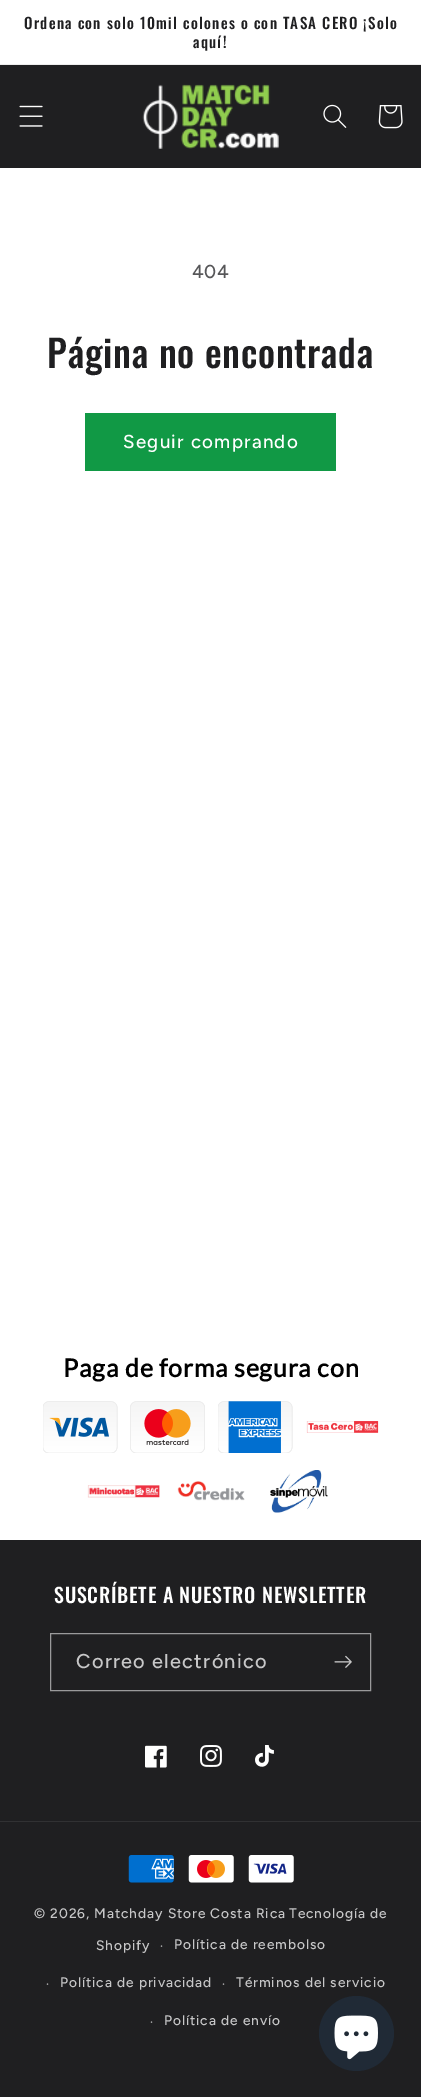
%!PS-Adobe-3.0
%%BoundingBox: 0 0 421 2097
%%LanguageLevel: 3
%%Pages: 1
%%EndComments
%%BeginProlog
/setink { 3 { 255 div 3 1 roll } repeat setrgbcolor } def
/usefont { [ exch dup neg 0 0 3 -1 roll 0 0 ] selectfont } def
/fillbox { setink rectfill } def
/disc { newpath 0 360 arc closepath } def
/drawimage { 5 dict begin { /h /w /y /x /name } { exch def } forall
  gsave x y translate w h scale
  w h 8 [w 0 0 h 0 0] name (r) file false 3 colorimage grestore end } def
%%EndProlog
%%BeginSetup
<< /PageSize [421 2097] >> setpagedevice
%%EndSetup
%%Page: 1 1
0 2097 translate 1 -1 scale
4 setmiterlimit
0 0 421 2097 255 255 255 fillbox
0 64 421 1 237 237 237 fillbox
/Oswald-Medium 15 usefont
31 31 33 setink
24 29 moveto 1.25 0 (Ordena con solo 10mil colones o con TASA CERO ¡Solo) ashow
193 48 moveto 1.25 0 (aquí!) ashow
0 65 421 103 31 31 33 fillbox
(assets/img1.rgb) 19 105 24 22 drawimage
(assets/img2.rgb) 142 84 137 65 drawimage
(assets/img3.rgb) 323 104 24 24 drawimage
(assets/img4.rgb) 378 105 25 24 drawimage
/Figtree-Medium 18.75 usefont
87 87 89 setink
192 278 moveto 0.75 0 (404) ashow
/Oswald-Medium 37.5 usefont
31 31 33 setink
47 368 moveto 0.75 0 (Página no encontrada) ashow
85 413 251 58 17 153 69 fillbox
/Figtree-Medium 18.75 usefont
255 255 255 setink
123 448 moveto 1.25 0 (Seguir comprando) ashow
/Lato-Bold 25 usefont
0 0 0 setink
63 1377 moveto 0.75 0 (Paga de forma segura con) ashow
(assets/img5.rgb) 43 1401 75 52 drawimage
(assets/img6.rgb) 130 1401 75 52 drawimage
(assets/img7.rgb) 218 1401 75 52 drawimage
(assets/img8.rgb) 306 1421 73 12 drawimage
(assets/img9.rgb) 87 1485 73 13 drawimage
(assets/img10.rgb) 177 1481 68 20 drawimage
(assets/img11.rgb) 270 1470 58 43 drawimage
0 1540 421 557 31 31 33 fillbox
/Oswald-Medium 20 usefont
255 255 255 setink
54 1603 moveto 0.75 0 (SUSCRÍBETE A NUESTRO NEWSLETTER) ashow
154 154 155 setink
50.5 1633.5 320 57 rectstroke
/Figtree-Medium 20 usefont
199 199 200 setink
76 1668 moveto 1.25 0 (Correo electrónico) ashow
(assets/img12.rgb) 334 1655 18 13 drawimage
(assets/img13.rgb) 145 1745 22 23 drawimage
(assets/img14.rgb) 200 1745 22 22 drawimage
(assets/img15.rgb) 255 1745 19 22 drawimage
0 1821 421 1 49 49 51 fillbox
(assets/img16.rgb) 128 1855 46 28 drawimage
(assets/img17.rgb) 188 1855 46 28 drawimage
(assets/img18.rgb) 248 1855 46 28 drawimage
/Figtree-Medium 13.75 usefont
199 199 200 setink
34 1918 moveto 0.9 0 (© 2026, Matchday Store Costa Rica) ashow
289 1918 moveto 0.9 0 (Tecnología de) ashow
/Figtree-Medium 12 usefont
160 1950 moveto 0.9 0 (·) ashow
/Figtree-Medium 13.75 usefont
174 1949 moveto 0.9 0 (Política de reembolso) ashow
/Figtree-Medium 12 usefont
46 1988 moveto 0.9 0 (·) ashow
/Figtree-Medium 13.75 usefont
60 1987 moveto 0.9 0 (Política de privacidad) ashow
/Figtree-Medium 12 usefont
222 1988 moveto 0.9 0 (·) ashow
/Figtree-Medium 13.75 usefont
236 1987 moveto 0.9 0 (Términos del servicio) ashow
/Figtree-Medium 12 usefont
150 2026 moveto 0.9 0 (·) ashow
/Figtree-Medium 13.75 usefont
164 2025 moveto 0.9 0 (Política de envío) ashow
96 1950 moveto 0.9 0 (Shopify) ashow
32 42 54 setink
356.5 2033.5 37.5 disc fill
(assets/img19.rgb) 334 2015 44 45 drawimage
showpage
%%EOF
